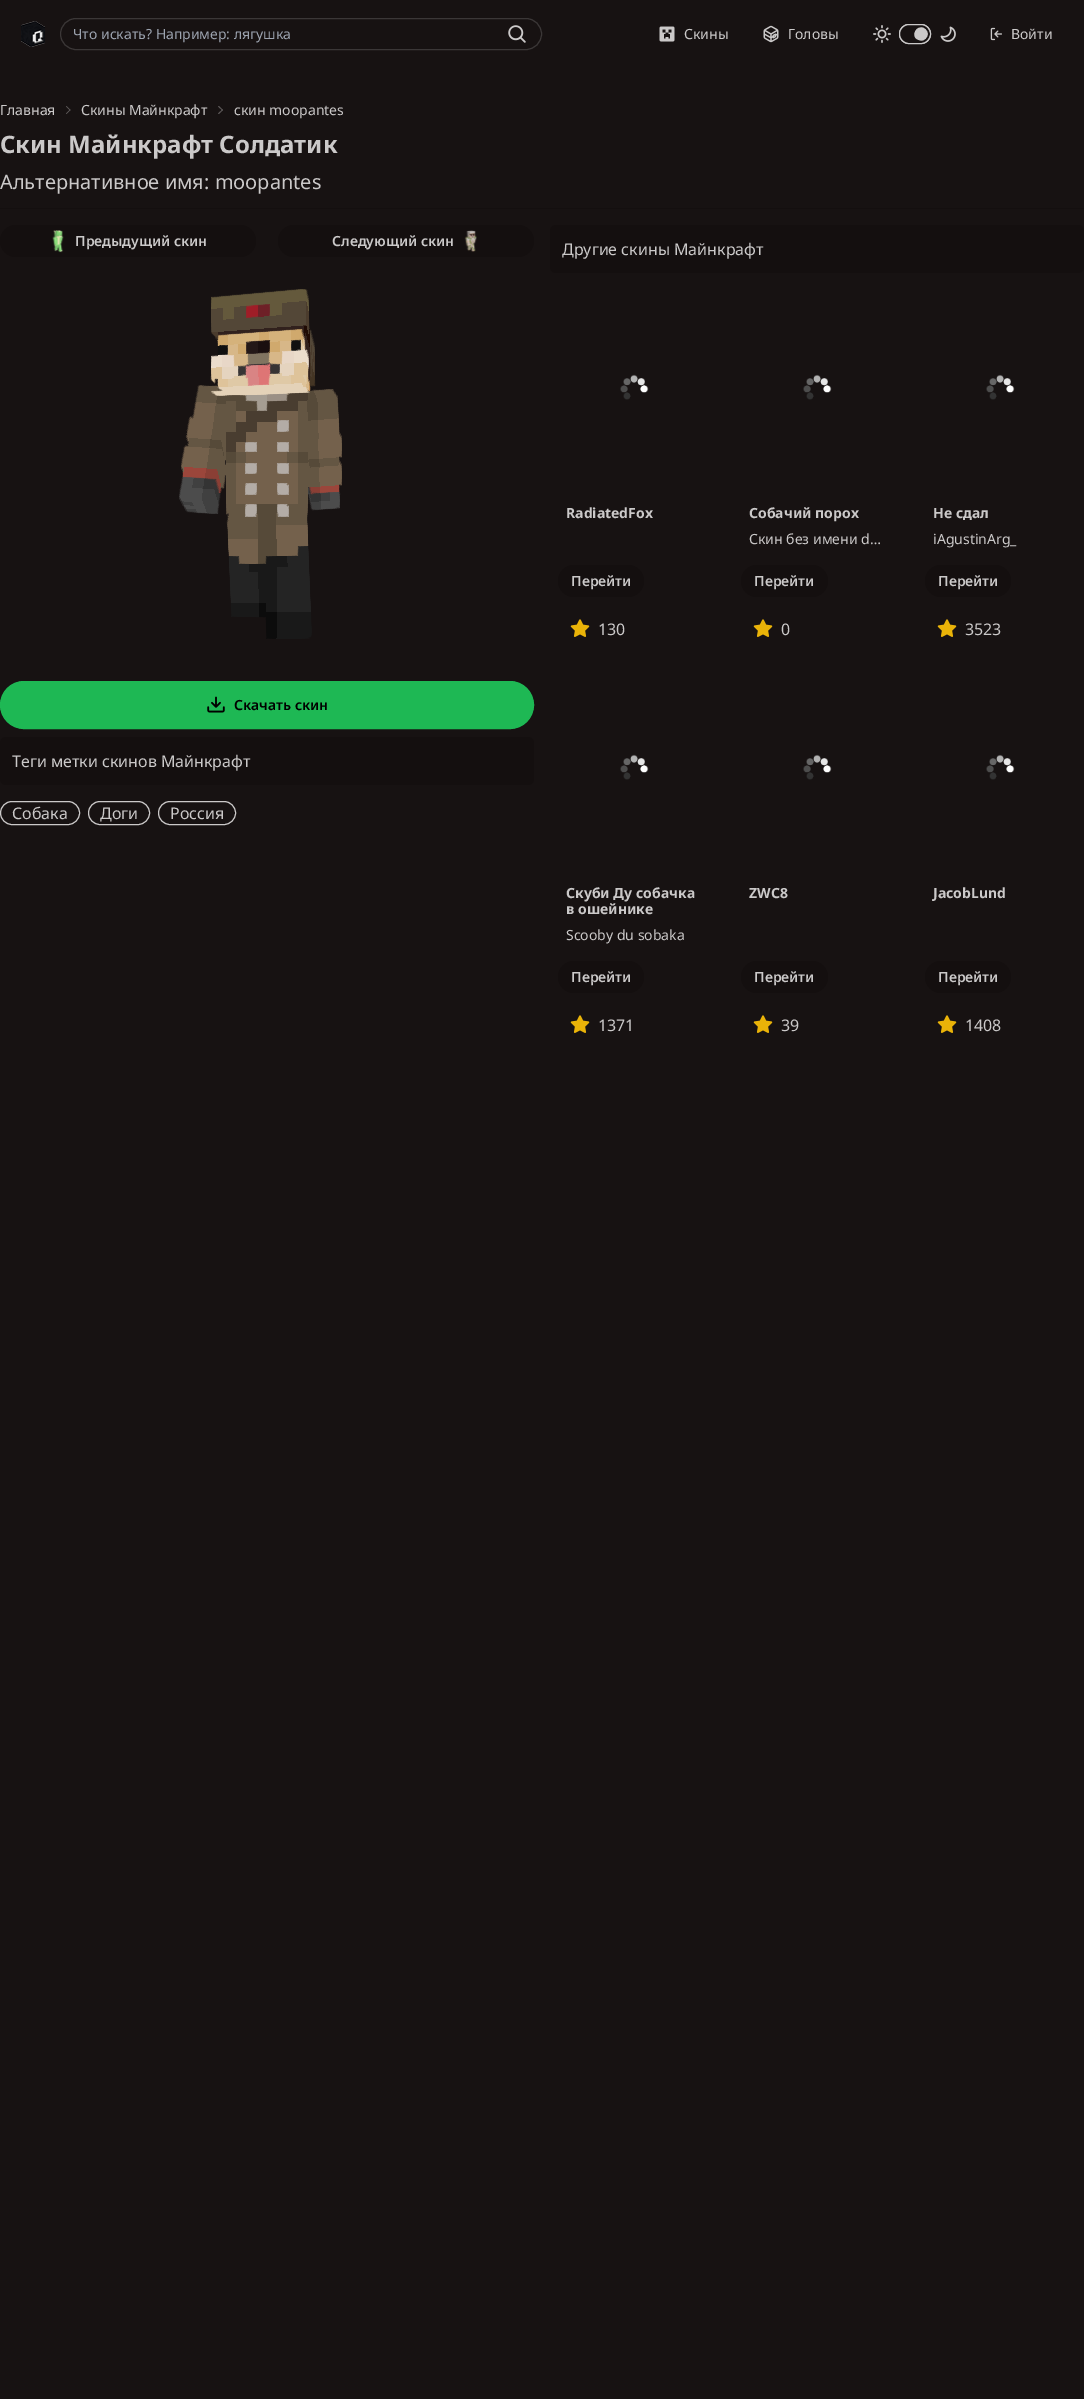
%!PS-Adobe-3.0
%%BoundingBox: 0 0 1084 2399
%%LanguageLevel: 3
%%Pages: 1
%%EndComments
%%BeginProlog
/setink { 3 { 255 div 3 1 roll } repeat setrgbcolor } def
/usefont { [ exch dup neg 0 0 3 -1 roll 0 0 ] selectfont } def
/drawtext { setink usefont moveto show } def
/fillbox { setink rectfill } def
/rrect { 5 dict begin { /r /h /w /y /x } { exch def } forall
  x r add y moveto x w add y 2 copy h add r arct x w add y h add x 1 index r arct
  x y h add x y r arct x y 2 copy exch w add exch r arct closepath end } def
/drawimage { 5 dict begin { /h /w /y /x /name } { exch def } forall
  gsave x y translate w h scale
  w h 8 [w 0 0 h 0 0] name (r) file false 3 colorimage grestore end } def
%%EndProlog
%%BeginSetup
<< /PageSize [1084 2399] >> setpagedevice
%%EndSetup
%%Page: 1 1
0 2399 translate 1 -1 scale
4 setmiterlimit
0 0 1084 2399 23 18 18 fillbox
(assets/img1.rgb) 21 21 24 26 drawimage
59 55 55 setink
60.5 18.5 481 31 15.5 rrect stroke
(Что искать? Например: лягушка) 73 39 /NotoSans-Regular 14 156 163 175 drawtext
(assets/img2.rgb) 508 25 18 18 drawimage
(assets/img3.rgb) 659 26 16 16 drawimage
(Скины) 684 39 /NotoSans-Regular 14 203 201 201 drawtext
(assets/img4.rgb) 763 25 16 18 drawimage
(Головы) 788 39 /NotoSans-Regular 14 203 201 201 drawtext
(assets/img5.rgb) 873 25 18 18 drawimage
899 24 32 20 10 rrect fill
23 18 18 setink
2 setlinewidth
901 26 28 16 8 rrect stroke
921 27 moveto 926.5 27 lineto 925 25.5 923 25 921 25 curveto 909 25 lineto 904 25 900 29 900 34 curveto 900 39 904 43 909 43 curveto 921 43 lineto 923 43 925 42.5 926.5 41 curveto 923.5 41.5 920 41 918 40 curveto 911 38 914 27 921 27 curveto closepath fill
203 201 201 setink
1 setlinewidth
899.5 24.5 31 19 9.5 rrect stroke
(assets/img6.rgb) 940 26 16 16 drawimage
(assets/img7.rgb) 990 27 12 14 drawimage
(Войти) 1011 39 /NotoSans-Regular 14 203 201 201 drawtext
0 208 1084 1 20 15 15 fillbox
(Главная) 0 115 /NotoSans-Regular 14 203 201 201 drawtext
95 91 91 setink
66.5 106 moveto 70.5 110 lineto 70 110.5 lineto 66 106.5 lineto closepath fill
70 109.5 moveto 70.5 110 lineto 66.5 114 lineto 66 113.5 lineto closepath fill
(Скины Майнкрафт) 81 115 /NotoSans-Regular 14 203 201 201 drawtext
95 91 91 setink
219 106 moveto 223 110 lineto 222.5 110.5 lineto 218 106.5 lineto closepath fill
222.5 109.5 moveto 223 110 lineto 219 114 lineto 218 113.5 lineto closepath fill
(скин moopantes) 234 115 /NotoSans-Regular 14 203 201 201 drawtext
(Скин Майнкрафт Солдатик) 0 153 /NotoSans-Bold 24 203 201 201 drawtext
(Альтернативное имя: moopantes) 0 189 /NotoSans-Regular 20 203 201 201 drawtext
20 15 15 setink
0 225 256 32 16 rrect fill
(assets/img8.rgb) 52 230 12 23 drawimage
(Предыдущий скин) 75 246 /NotoSans-SemiBold 14 203 201 201 drawtext
20 15 15 setink
278 225 256 32 16 rrect fill
(Следующий скин) 332 246 /NotoSans-SemiBold 14 203 201 201 drawtext
(assets/img9.rgb) 464 230 13 22 drawimage
(assets/img10.rgb) 179 289 163 350 drawimage
30 184 84 setink
0.5 681.5 533 47 23.5 rrect gsave fill grestore
stroke
(assets/img11.rgb) 207 696 18 17 drawimage
(Скачать скин) 234 710 /NotoSans-SemiBold 14 0 0 0 drawtext
20 15 15 setink
0 737 534 48 6 rrect fill
(Теги метки скинов Майнкрафт) 12 767 /NotoSans-Regular 16 203 201 201 drawtext
0.5 801.5 79 23 11.5 rrect stroke
(Собака) 12 819 /NotoSans-Regular 16 203 201 201 drawtext
88.5 801.5 61 23 11.5 rrect stroke
(Доги) 100 819 /NotoSans-Regular 16 203 201 201 drawtext
158.5 801.5 77 23 11.5 rrect stroke
(Россия) 170 819 /NotoSans-Regular 16 203 201 201 drawtext
20 15 15 setink
550 225 534 48 6 rrect fill
(Другие скины Майнкрафт) 562 255 /NotoSans-Regular 16 203 201 201 drawtext
(assets/img12.rgb) 620 374 29 26 drawimage
(RadiatedFox) 566 518 /NotoSans-Bold 14 203 201 201 drawtext
20 15 15 setink
558 565 86 32 16 rrect fill
(Перейти) 571 586 /NotoSans-SemiBold 14 203 201 201 drawtext
(assets/img13.rgb) 570 619 20 18 drawimage
(130) 598 635 /NotoSans-Regular 16 203 201 201 drawtext
(assets/img12.rgb) 803 374 29 26 drawimage
(Собачий порох) 749 518 /NotoSans-Bold 14 203 201 201 drawtext
(Скин без имени d…) 749 544 /NotoSans-Regular 14 203 201 201 drawtext
20 15 15 setink
741 565 87 32 16 rrect fill
(Перейти) 754 586 /NotoSans-SemiBold 14 203 201 201 drawtext
(assets/img13.rgb) 753 619 20 18 drawimage
(0) 781 635 /NotoSans-Regular 16 203 201 201 drawtext
(assets/img14.rgb) 986 374 29 26 drawimage
(Не сдал) 933 518 /NotoSans-Bold 14 203 201 201 drawtext
(iAgustinArg_) 933 544 /NotoSans-Regular 14 203 201 201 drawtext
20 15 15 setink
925 565 86 32 16 rrect fill
(Перейти) 938 586 /NotoSans-SemiBold 14 203 201 201 drawtext
(assets/img13.rgb) 937 619 20 18 drawimage
(3523) 965 635 /NotoSans-Regular 16 203 201 201 drawtext
(assets/img12.rgb) 620 754 29 26 drawimage
(Скуби Ду собачка) 566 898 /NotoSans-Bold 14 203 201 201 drawtext
(в ошейнике) 566 914 /NotoSans-Bold 14 203 201 201 drawtext
(Scooby du sobaka) 566 940 /NotoSans-Regular 14 203 201 201 drawtext
20 15 15 setink
558 961 86 32 16 rrect fill
(Перейти) 571 982 /NotoSans-SemiBold 14 203 201 201 drawtext
(assets/img13.rgb) 570 1015 20 18 drawimage
(1371) 598 1031 /NotoSans-Regular 16 203 201 201 drawtext
(assets/img12.rgb) 803 754 29 26 drawimage
(ZWC8) 749 898 /NotoSans-Bold 14 203 201 201 drawtext
20 15 15 setink
741 961 87 32 16 rrect fill
(Перейти) 754 982 /NotoSans-SemiBold 14 203 201 201 drawtext
(assets/img13.rgb) 753 1015 20 18 drawimage
(39) 781 1031 /NotoSans-Regular 16 203 201 201 drawtext
(assets/img14.rgb) 986 754 29 26 drawimage
(JacobLund) 933 898 /NotoSans-Bold 14 203 201 201 drawtext
20 15 15 setink
925 961 86 32 16 rrect fill
(Перейти) 938 982 /NotoSans-SemiBold 14 203 201 201 drawtext
(assets/img13.rgb) 937 1015 20 18 drawimage
(1408) 965 1031 /NotoSans-Regular 16 203 201 201 drawtext
showpage
%%EOF
